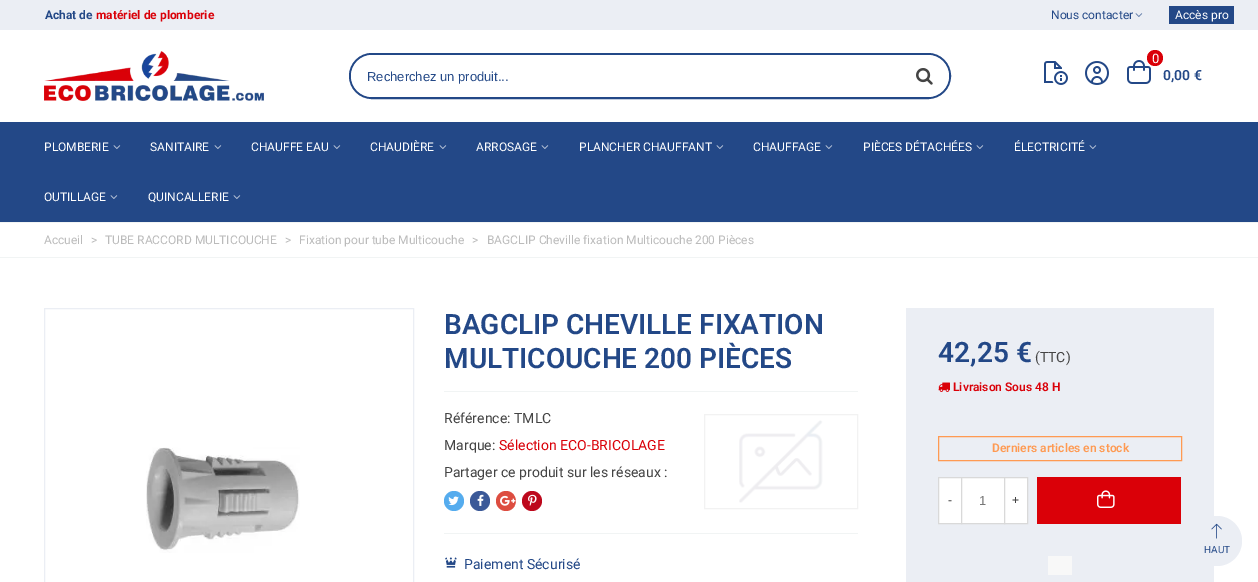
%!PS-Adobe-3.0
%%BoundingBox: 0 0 1258 582
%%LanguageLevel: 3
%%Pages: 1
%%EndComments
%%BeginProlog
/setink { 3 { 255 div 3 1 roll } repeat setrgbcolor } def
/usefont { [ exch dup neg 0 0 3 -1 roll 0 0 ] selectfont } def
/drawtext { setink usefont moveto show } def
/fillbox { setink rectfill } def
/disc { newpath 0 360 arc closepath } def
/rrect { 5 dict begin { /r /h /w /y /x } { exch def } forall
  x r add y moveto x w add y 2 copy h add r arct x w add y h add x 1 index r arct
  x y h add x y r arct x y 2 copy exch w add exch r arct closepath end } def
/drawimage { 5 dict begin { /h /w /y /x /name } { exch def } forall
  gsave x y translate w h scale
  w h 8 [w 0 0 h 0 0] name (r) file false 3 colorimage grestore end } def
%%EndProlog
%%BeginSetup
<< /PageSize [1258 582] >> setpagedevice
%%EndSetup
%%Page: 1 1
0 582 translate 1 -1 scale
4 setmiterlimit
0 0 1258 582 255 255 255 fillbox
0 0 1258 30 235 238 244 fillbox
(Achat de) 45 19 /Roboto-Bold 12 35 72 135 drawtext
(matériel de plomberie) 96 19 /Roboto-Bold 12 218 0 8 drawtext
(Nous contacter) 1051 19 /Roboto-Regular 12 35 72 135 drawtext
(assets/img1.rgb) 1135 13 8 4 drawimage
1169 6 65 18 35 72 135 fillbox
(Accès pro) 1175 19 /Roboto-Regular 12 255 255 255 drawtext
(assets/img2.rgb) 44 51 220 50 drawimage
35 72 135 setink
2 setlinewidth
350 54 600 44 22 rrect stroke
255 255 255 setink
372 55 moveto 899 55 lineto 899 97 lineto 372 97 lineto 360.5 97 351 87.5 351 76 curveto 351 64.5 360.5 55 372 55 curveto closepath fill
(Recherchez un produit...) 367 81 /LiberationSans-Regular 13 35 72 135 drawtext
255 255 255 setink
899 55 moveto 928 55 lineto 939.5 55 949 64.5 949 76 curveto 949 87.5 939.5 97 928 97 curveto 899 97 lineto closepath fill
(assets/img3.rgb) 916 68 17 17 drawimage
(assets/img4.rgb) 1044 61 24 24 drawimage
(assets/img5.rgb) 1085 61 24 24 drawimage
(assets/img6.rgb) 1127 60 24 24 drawimage
218 0 8 setink
1155 58 8 disc fill
(0) 1152 63 /Roboto-Regular 13 255 255 255 drawtext
(0,00 €) 1163 80 /Roboto-SemiBold 14 35 72 135 drawtext
0 122 1258 100 35 72 135 fillbox
(PLOMBERIE) 44 151 /Roboto-Regular 12 255 255 255 drawtext
(assets/img7.rgb) 113 145 8 4 drawimage
(SANITAIRE) 150 151 /Roboto-Regular 12 255 255 255 drawtext
(assets/img7.rgb) 214 145 8 4 drawimage
(CHAUFFE EAU) 251 151 /Roboto-Regular 12 255 255 255 drawtext
(assets/img7.rgb) 333 145 8 4 drawimage
(CHAUDIÈRE) 370 151 /Roboto-Regular 12 255 255 255 drawtext
(assets/img7.rgb) 439 145 8 4 drawimage
(ARROSAGE) 476 151 /Roboto-Regular 12 255 255 255 drawtext
(assets/img7.rgb) 541 145 8 4 drawimage
(PLANCHER CHAUFFANT) 579 151 /Roboto-Regular 12 255 255 255 drawtext
(assets/img7.rgb) 716 145 8 4 drawimage
(CHAUFFAGE) 753 151 /Roboto-Regular 12 255 255 255 drawtext
(assets/img7.rgb) 825 145 8 4 drawimage
(PIÈCES DÉTACHÉES) 863 151 /Roboto-Regular 12 255 255 255 drawtext
(assets/img7.rgb) 976 145 8 4 drawimage
(ÉLECTRICITÉ) 1014 151 /Roboto-Regular 12 255 255 255 drawtext
(assets/img7.rgb) 1089 145 8 4 drawimage
(OUTILLAGE) 44 201 /Roboto-Regular 12 255 255 255 drawtext
(assets/img7.rgb) 110 195 8 4 drawimage
(QUINCALLERIE) 148 201 /Roboto-Regular 12 255 255 255 drawtext
(assets/img7.rgb) 233 195 8 4 drawimage
0 222 1258 1 241 244 244 fillbox
0 257 1258 1 241 244 244 fillbox
(Accueil) 44 244 /Roboto-Regular 12 187 187 187 drawtext
(>) 91 244 /Roboto-Regular 12 187 187 187 drawtext
(TUBE RACCORD MULTICOUCHE) 105 244 /Roboto-Regular 12 187 187 187 drawtext
(>) 285 244 /Roboto-Regular 12 187 187 187 drawtext
(Fixation pour tube Multicouche) 299 244 /Roboto-Regular 12 187 187 187 drawtext
(>) 472 244 /Roboto-Regular 12 187 187 187 drawtext
(BAGCLIP Cheville fixation Multicouche 200 Pièces) 487 244 /Roboto-Regular 12 187 187 187 drawtext
235 238 244 setink
1 setlinewidth
44.5 308.5 369 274 rectstroke
(assets/img8.rgb) 146 447 154 106 drawimage
(BAGCLIP CHEVILLE FIXATION) 444 334 /Roboto-SemiBold 28 35 72 135 drawtext
(MULTICOUCHE 200 PIÈCES) 444 368 /Roboto-SemiBold 28 35 72 135 drawtext
444 391 414 1 241 244 244 fillbox
(Référence:) 444 423 /Roboto-Regular 14 68 68 68 drawtext
(TMLC) 514 423 /Roboto-Regular 14 68 68 68 drawtext
242 242 242 setink
704.5 414.5 153 94 rectstroke
(assets/img9.rgb) 739 420 84 83 drawimage
(Marque:) 444 450 /Roboto-Regular 14 68 68 68 drawtext
(Sélection ECO-BRICOLAGE) 499 450 /Roboto-Regular 14 218 0 8 drawtext
(Partager ce produit sur les réseaux :) 444 477 /Roboto-Regular 14 68 68 68 drawtext
85 172 238 setink
454 501 10 disc fill
(assets/img10.rgb) 448 496 11 10 drawimage
59 89 152 setink
480 501 10 disc fill
(assets/img11.rgb) 477 494 7 12 drawimage
221 77 64 setink
506 501 10 disc fill
(assets/img12.rgb) 500 495 16 11 drawimage
189 8 28 setink
532 501 10 disc fill
(assets/img13.rgb) 528 494 9 12 drawimage
444 533 414 1 241 244 244 fillbox
(assets/img14.rgb) 445 557 12 11 drawimage
(Paiement Sécurisé) 464 569 /Roboto-Regular 14 35 72 135 drawtext
906 308 308 274 235 238 244 fillbox
(42,25 €) 938 362 /Roboto-SemiBold 28 35 72 135 drawtext
(\(TTC\)) 1035 362 /Roboto-Regular 14 68 68 68 drawtext
(assets/img15.rgb) 938 382 12 10 drawimage
(Livraison Sous 48 H) 953 391 /Roboto-SemiBold 12 218 0 8 drawtext
255 154 82 setink
938.5 436.5 243 24 rectstroke
(Derniers articles en stock) 992 452 /Roboto-SemiBold 12 255 154 82 drawtext
255 255 255 setink
938.5 477.5 moveto 961.5 477.5 lineto 961.5 523.5 lineto 938.5 523.5 lineto closepath gsave fill grestore
217 217 217 setink
stroke
(-) 948 504 /LiberationSans-Regular 12 68 68 68 drawtext
255 255 255 setink
961.5 477.5 moveto 1004.5 477.5 lineto 1004.5 523.5 lineto 961.5 523.5 lineto closepath gsave fill grestore
217 217 217 setink
stroke
(1) 979 505 /LiberationSans-Regular 13 119 119 119 drawtext
255 255 255 setink
1004.5 477.5 moveto 1027.5 477.5 lineto 1027.5 523.5 lineto 1004.5 523.5 lineto closepath gsave fill grestore
217 217 217 setink
stroke
(+) 1012 504 /LiberationSans-Regular 12 68 68 68 drawtext
1037 477 144 47 218 0 8 fillbox
(assets/img16.rgb) 1097 490 18 18 drawimage
1048 556 24 19 248 248 248 fillbox
235 238 244 setink
1217 541 25 disc fill
(assets/img17.rgb) 1211 523 11 16 drawimage
(HAUT) 1204 553 /Roboto-Regular 10 35 72 135 drawtext
showpage
%%EOF
